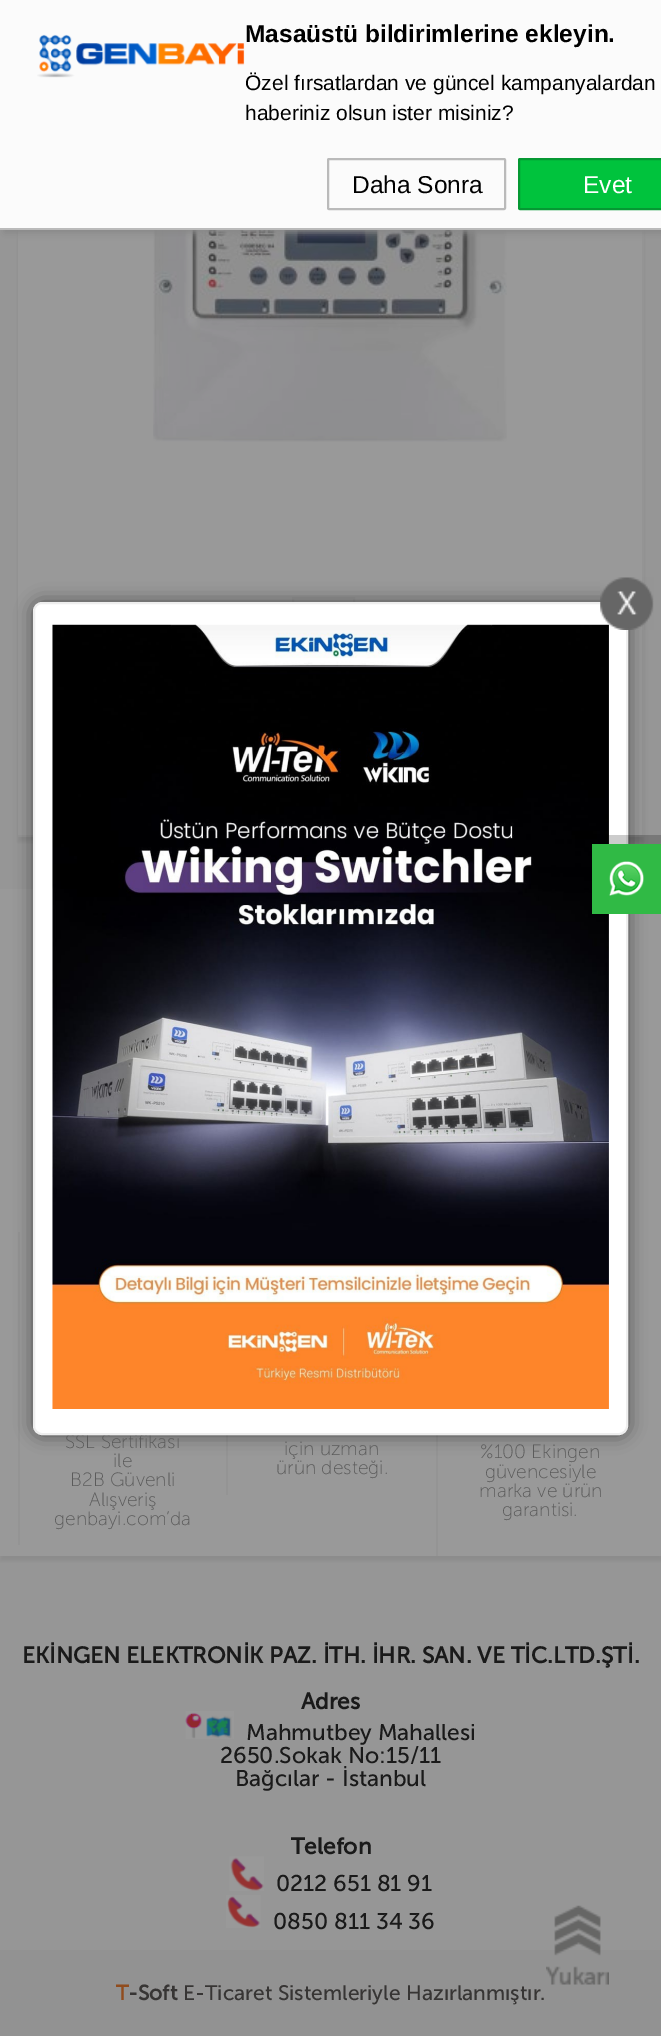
%!PS-Adobe-3.0
%%BoundingBox: 0 0 661 2036
%%LanguageLevel: 3
%%Pages: 1
%%EndComments
%%BeginProlog
/setink { 3 { 255 div 3 1 roll } repeat setrgbcolor } def
/usefont { [ exch dup neg 0 0 3 -1 roll 0 0 ] selectfont } def
/drawtext { setink usefont moveto show } def
/fillbox { setink rectfill } def
/setalpha { dup .setfillconstantalpha .setstrokeconstantalpha } def
/rrect { 5 dict begin { /r /h /w /y /x } { exch def } forall
  x r add y moveto x w add y 2 copy h add r arct x w add y h add x 1 index r arct
  x y h add x y r arct x y 2 copy exch w add exch r arct closepath end } def
/softshadow { 12 dict begin { /a /b /q /h /w /y /x } { exch def } forall gsave /was 0 def
  9 -2 -9 { dup b mul 4 div /e exch def 1 sub .425 mul 2.718 exch exp 1 add a .99 .min exch div /now exch def
    1 1 now sub 1 was sub div sub setalpha /was now def
    w h .min e 2 mul add 0 gt { x e sub y e sub w e 2 mul add h e 2 mul add
      q e add b .6 mul add w h .min 2 div e add .min 0 .max rrect fill } if } for grestore end } def
/drawimage { 5 dict begin { /h /w /y /x /name } { exch def } forall
  gsave x y translate w h scale
  w h 8 [w 0 0 h 0 0] name (r) file false 3 colorimage grestore end } def
%%EndProlog
%%BeginSetup
<< /PageSize [661 2036] /PageUsesTransparency true >> setpagedevice
%%EndSetup
%%Page: 1 1
0 .pushpdf14devicefilter
0 2036 translate 1 -1 scale
4 setmiterlimit
0 0 661 2036 150 150 150 fillbox
26 26 26 setink
18 -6 626 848 0 2 0.1 softshadow
18 230 624 605 153 153 153 fillbox
642 230 2 607 148 148 148 fillbox
(assets/img5.rgb) 153 230 354 212 drawimage
136 136 136 setink
4 11 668 222 0 3.5 1 softshadow
0 0 661 228 251 251 251 fillbox
0 228 661 2 186 186 186 fillbox
(assets/img1.rgb) 37 34 208 44 drawimage
(Masaüstü bildirimlerine ekleyin.) 245 42 /LiberationSans-Bold 24.5 0 0 0 drawtext
(Özel fırsatlardan ve güncel kampanyalardan) 245 90 /LiberationSans-Regular 21 0 0 0 drawtext
(haberiniz olsun ister misiniz?) 245 120 /LiberationSans-Regular 21 0 0 0 drawtext
186 186 186 setink
2 setlinewidth
328 159 177 50 1 rrect stroke
(Daha Sonra) 352 193 /LiberationSans-Regular 24.5 0 0 0 drawtext
0 195 61 setink
519 159 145 50 1 rrect gsave fill grestore
5 152 51 setink
stroke
(Evet) 583 193 /LiberationSans-Regular 24.5 255 255 255 drawtext
18 835 626 2 148 148 148 fillbox
149 149 149 setink
293 598 61 42 rectstroke
26 26 26 setink
0 894 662 667 0 2 0.1 softshadow
0 889 661 667 153 153 153 fillbox
18 1232 2 313 148 148 148 fillbox
226 1435 2 60 148 148 148 fillbox
436 1435 2 121 148 148 148 fillbox
0 0 0 setink
33 602 595 833 9 9 0.5 softshadow
(SSL Sertifikası) 65 1448 /MuseoSans-ExtraLight 19.25 91 91 91 drawtext
255 255 255 setink
34 603 593 831 8 rrect gsave fill grestore
238 238 238 setink
stroke
(assets/img3.rgb) 52 624 557 785 drawimage
(assets/img2.rgb) 600 577 54 53 drawimage
0.2 setalpha
0 0 0 setink
600 835 moveto 600 844 lineto 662 844 lineto 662 905 lineto 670 905 lineto 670 835 lineto closepath fill
1 setalpha
592 844 69 70 48 186 69 fillbox
(assets/img4.rgb) 609 861 35 35 drawimage
0 1950 661 86 146 146 146 fillbox
(assets/img6.rgb) 546 1905 63 80 drawimage
(ile) 113 1467 /MuseoSans-ExtraLight 19.25 91 91 91 drawtext
(B2B Güvenli) 70 1486 /MuseoSans-ExtraLight 19.25 91 91 91 drawtext
(Alışveriş) 89 1506 /MuseoSans-ExtraLight 19.25 91 91 91 drawtext
(genbayi.com’da) 54 1525 /MuseoSans-ExtraLight 19.25 91 91 91 drawtext
(için uzman) 284 1455 /MuseoSans-ExtraLight 19.25 91 91 91 drawtext
(ürün desteği.) 276 1474 /MuseoSans-ExtraLight 19.25 91 91 91 drawtext
(%100 Ekingen) 480 1458 /MuseoSans-ExtraLight 19.25 91 91 91 drawtext
(güvencesiyle) 485 1478 /MuseoSans-ExtraLight 19.25 91 91 91 drawtext
(marka ve ürün) 479 1497 /MuseoSans-ExtraLight 19.25 91 91 91 drawtext
(garantisi.) 502 1516 /MuseoSans-ExtraLight 19.25 91 91 91 drawtext
(EKİNGEN ELEKTRONİK PAZ. İTH. İHR. SAN. VE TİC.LTD.ŞTİ.) 22 1663 /MuseoSans-Bold 22.75 26 26 26 drawtext
(Adres) 301 1709 /MuseoSans-Bold 22.75 26 26 26 drawtext
(assets/img7.rgb) 185 1711 49 28 drawimage
(Mahmutbey Mahallesi) 246 1740 /MuseoSans-Regular 22.75 26 26 26 drawtext
(2650.Sokak No:15/11) 220 1763 /MuseoSans-Regular 22.75 26 26 26 drawtext
(Bağcılar - İstanbul) 235 1786 /MuseoSans-Regular 22.75 26 26 26 drawtext
(Telefon) 291 1854 /MuseoSans-Bold 22.75 26 26 26 drawtext
(assets/img8.rgb) 229 1856 35 35 drawimage
(0212 651 81 91) 276 1891 /MuseoSans-Regular 22.75 26 26 26 drawtext
(assets/img9.rgb) 226 1895 35 33 drawimage
(0850 811 34 36) 273 1929 /MuseoSans-Regular 22.75 26 26 26 drawtext
(T) 116 2000 /MuseoSans-Bold 21 144 76 30 drawtext
(-Soft) 128 2000 /MuseoSans-Bold 21 55 53 52 drawtext
(E-Ticaret Sistemleriyle Hazırlanmıştır.) 183 2000 /MuseoSans-Regular 21 55 53 52 drawtext
.poppdf14devicefilter showpage
%%EOF
